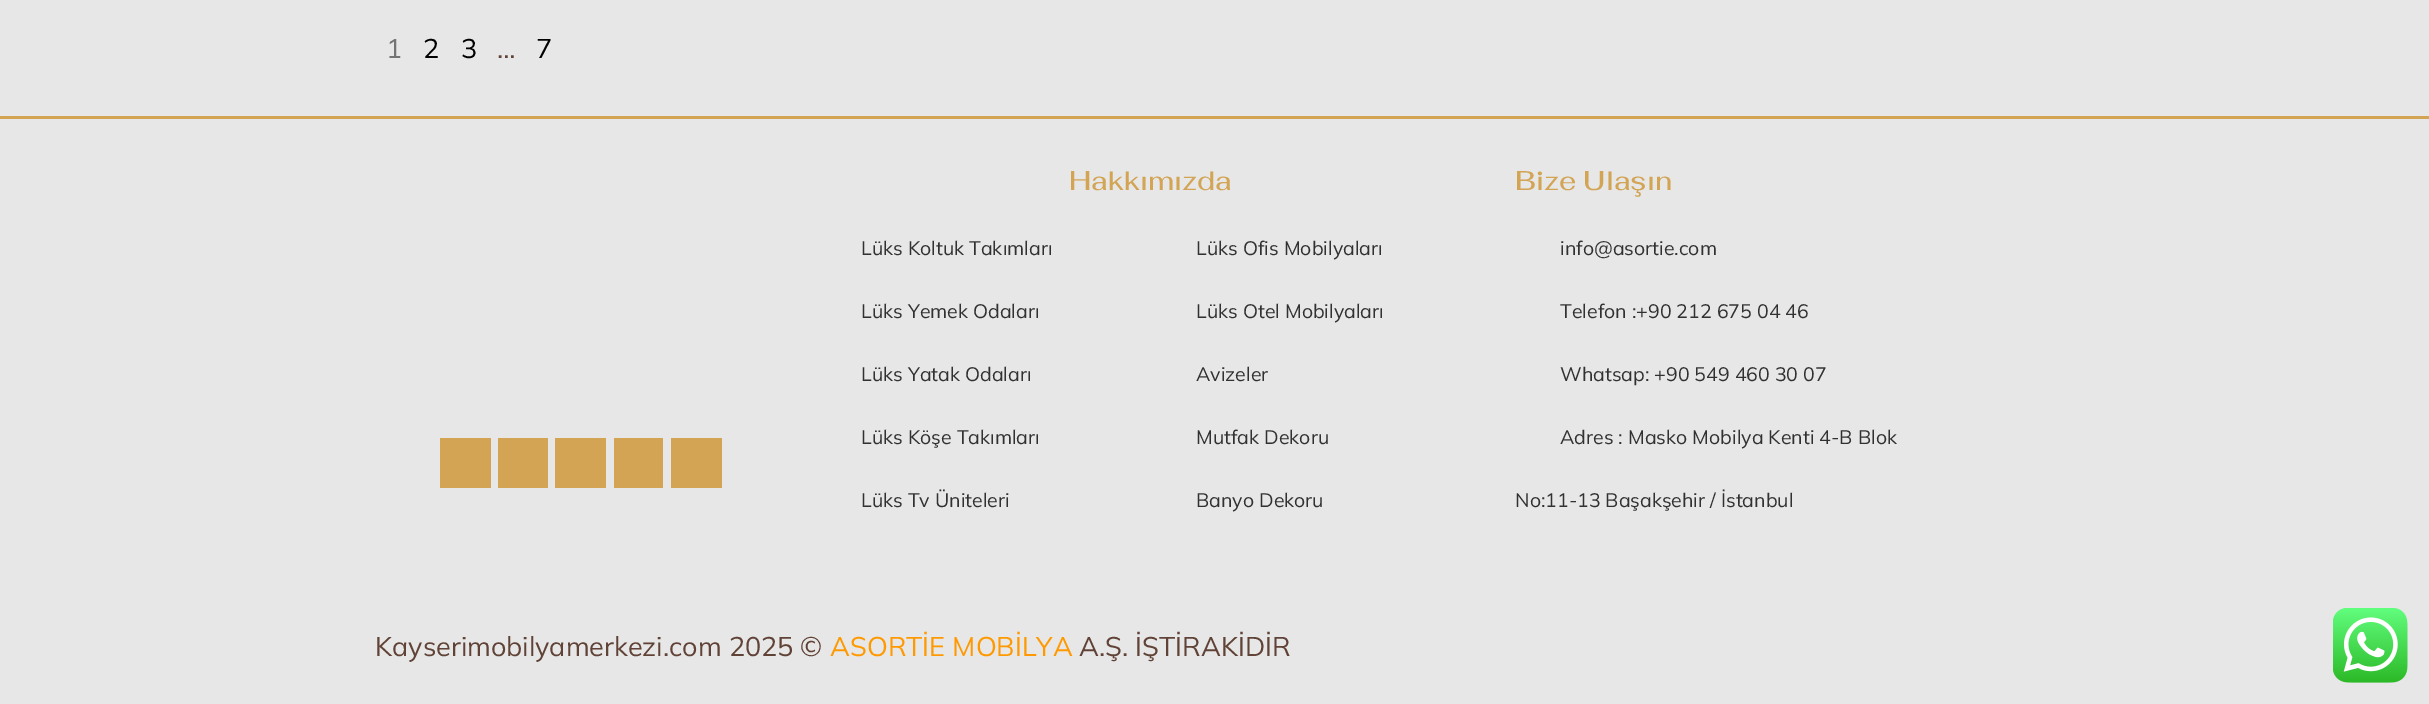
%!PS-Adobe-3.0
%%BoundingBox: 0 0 2429 704
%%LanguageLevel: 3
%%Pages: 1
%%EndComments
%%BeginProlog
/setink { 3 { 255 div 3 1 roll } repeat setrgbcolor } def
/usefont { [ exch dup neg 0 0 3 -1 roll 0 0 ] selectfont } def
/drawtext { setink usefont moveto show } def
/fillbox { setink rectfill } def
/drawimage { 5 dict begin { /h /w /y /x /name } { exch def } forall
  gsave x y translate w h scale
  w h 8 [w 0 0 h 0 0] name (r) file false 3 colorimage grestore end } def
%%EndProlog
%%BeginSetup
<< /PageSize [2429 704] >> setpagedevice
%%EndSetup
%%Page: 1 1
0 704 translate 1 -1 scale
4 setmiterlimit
0 0 2429 704 231 231 231 fillbox
(1) 386 58 /Mulish-Regular 27 116 116 116 drawtext
(2) 423 58 /Mulish-Regular 27 0 0 0 drawtext
(3) 461 58 /Mulish-Regular 27 0 0 0 drawtext
(…) 497 58 /Mulish-Regular 27 96 66 54 drawtext
(7) 536 58 /Mulish-Regular 27 0 0 0 drawtext
0 116 2429 3 210 164 84 fillbox
440 438 51 50 210 164 84 fillbox
498 438 50 50 210 164 84 fillbox
555 438 51 50 210 164 84 fillbox
614 438 49 50 210 164 84 fillbox
671 438 51 50 210 164 84 fillbox
(Hakkımızda) 1069 190 /Fahkwang-Medium 27 210 164 84 drawtext
(Lüks Koltuk Takımları) 861 255 /Mulish-Regular 19.5 49 49 49 drawtext
(Lüks Yemek Odaları) 861 318 /Mulish-Regular 19.5 49 49 49 drawtext
(Lüks Yatak Odaları) 861 381 /Mulish-Regular 19.5 49 49 49 drawtext
(Lüks Köşe Takımları) 861 444 /Mulish-Regular 19.5 49 49 49 drawtext
(Lüks Tv Üniteleri) 861 507 /Mulish-Regular 19.5 49 49 49 drawtext
(Lüks Ofis Mobilyaları) 1196 255 /Mulish-Regular 19.5 49 49 49 drawtext
(Lüks Otel Mobilyaları) 1196 318 /Mulish-Regular 19.5 49 49 49 drawtext
(Avizeler) 1196 381 /Mulish-Regular 19.5 49 49 49 drawtext
(Mutfak Dekoru) 1196 444 /Mulish-Regular 19.5 49 49 49 drawtext
(Banyo Dekoru) 1196 507 /Mulish-Regular 19.5 49 49 49 drawtext
(Bize Ulaşın) 1515 190 /Fahkwang-Medium 27 210 164 84 drawtext
(info@asortie.com) 1560 255 /Mulish-Regular 19.5 49 49 49 drawtext
(Telefon :+90 212 675 04 46) 1560 318 /Mulish-Regular 19.5 49 49 49 drawtext
(Whatsap: +90 549 460 30 07) 1560 381 /Mulish-Regular 19.5 49 49 49 drawtext
(Adres : Masko Mobilya Kenti 4-B Blok) 1560 444 /Mulish-Regular 19.5 49 49 49 drawtext
(No:11-13 Başakşehir / İstanbul) 1515 507 /Mulish-Regular 19.5 49 49 49 drawtext
(Kayserimobilyamerkezi.com 2025 ©) 375 656 /Mulish-Regular 27 96 66 54 drawtext
(ASORTİE MOBİLYA) 830 656 /Mulish-Regular 27 255 153 0 drawtext
(A.Ş. İŞTİRAKİDİR) 1079 656 /Mulish-Regular 27 96 66 54 drawtext
(assets/img1.rgb) 2333 608 75 75 drawimage
showpage
%%EOF
